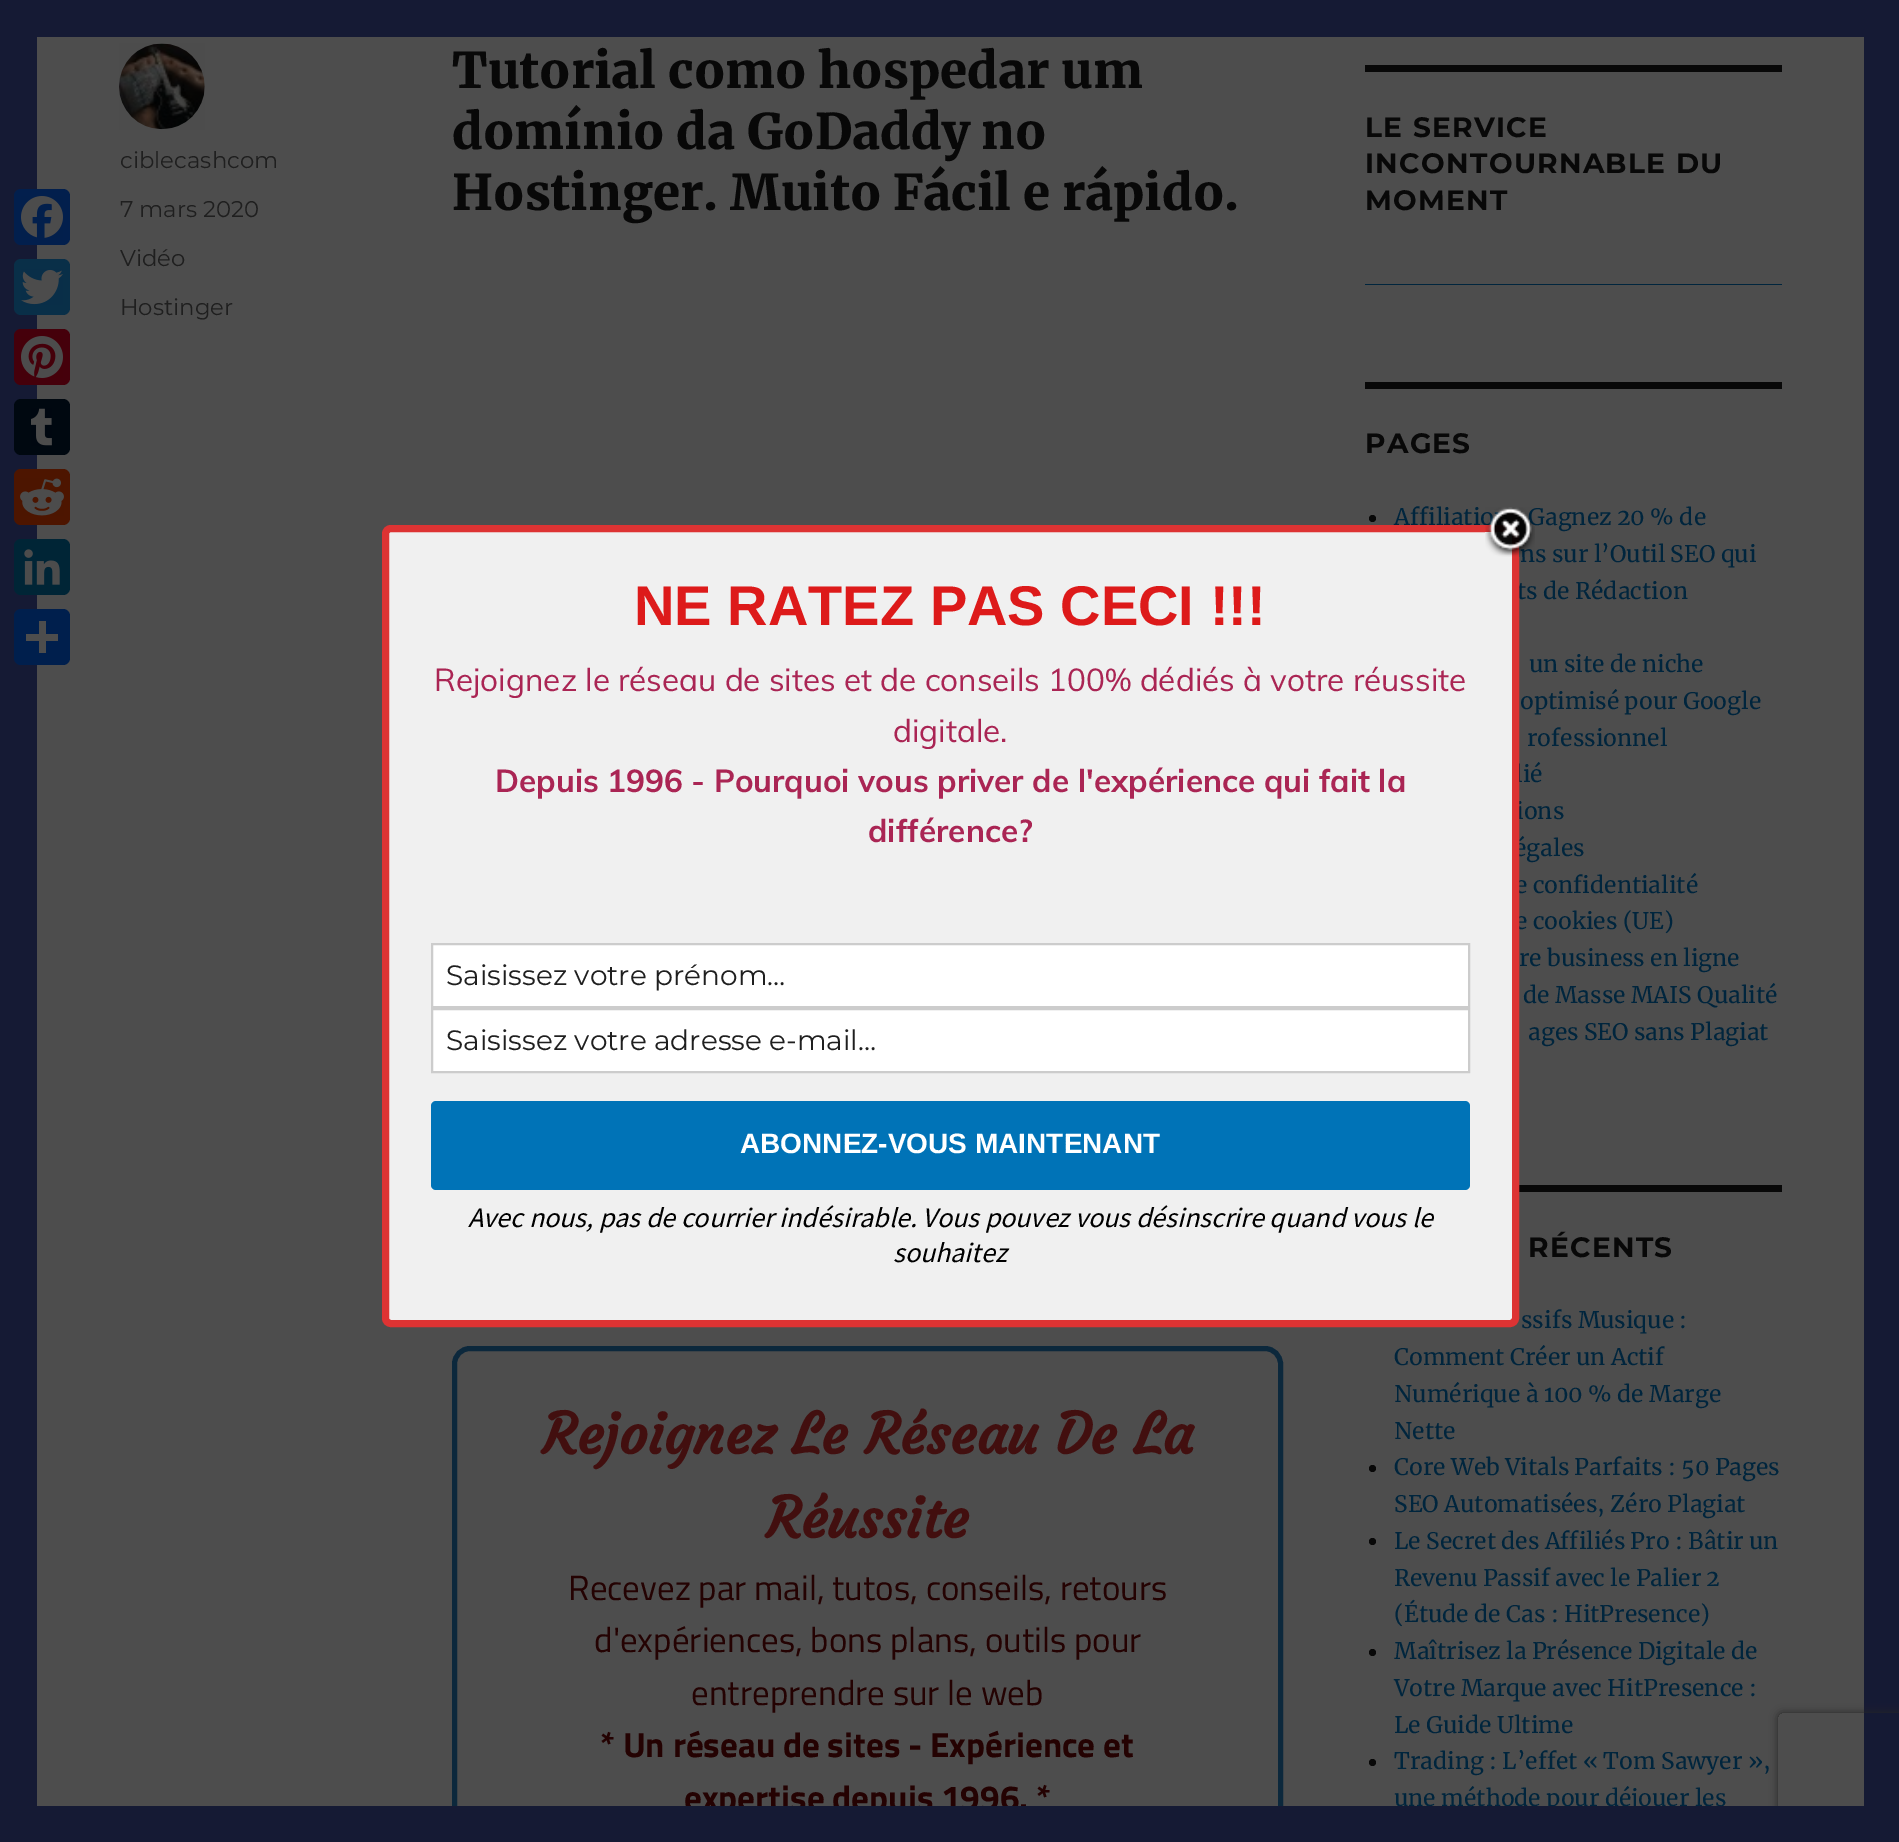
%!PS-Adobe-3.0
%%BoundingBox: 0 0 1899 1842
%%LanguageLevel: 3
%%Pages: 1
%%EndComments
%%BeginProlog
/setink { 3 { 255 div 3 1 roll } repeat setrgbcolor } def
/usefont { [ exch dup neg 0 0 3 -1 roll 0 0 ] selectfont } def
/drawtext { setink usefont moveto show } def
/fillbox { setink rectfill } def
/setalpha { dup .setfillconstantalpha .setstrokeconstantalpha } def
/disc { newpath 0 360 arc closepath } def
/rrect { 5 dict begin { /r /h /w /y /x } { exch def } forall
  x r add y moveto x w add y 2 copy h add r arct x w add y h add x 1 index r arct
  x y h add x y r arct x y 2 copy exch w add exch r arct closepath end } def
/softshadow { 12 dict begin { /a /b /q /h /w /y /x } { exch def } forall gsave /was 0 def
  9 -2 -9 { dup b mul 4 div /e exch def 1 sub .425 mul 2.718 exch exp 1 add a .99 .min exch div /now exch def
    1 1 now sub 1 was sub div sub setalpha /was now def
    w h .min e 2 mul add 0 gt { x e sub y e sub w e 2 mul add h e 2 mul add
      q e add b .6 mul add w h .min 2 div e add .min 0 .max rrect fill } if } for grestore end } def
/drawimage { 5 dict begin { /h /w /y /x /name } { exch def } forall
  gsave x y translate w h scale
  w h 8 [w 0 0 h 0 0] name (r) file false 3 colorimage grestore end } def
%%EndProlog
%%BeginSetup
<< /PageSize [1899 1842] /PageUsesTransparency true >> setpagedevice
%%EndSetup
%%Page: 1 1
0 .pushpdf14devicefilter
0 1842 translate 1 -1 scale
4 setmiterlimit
0 0 1899 1842 21 26 52 fillbox
37 37 1827 1769 77 77 77 fillbox
2 31 77 setink
14 189 56 56 7 rrect fill
(assets/img1.rgb) 21 196 42 42 drawimage
9 47 72 setink
14 259 56 56 7 rrect fill
(assets/img2.rgb) 21 269 42 36 drawimage
69 0 11 setink
14 329 56 56 7 rrect fill
(assets/img3.rgb) 21 336 42 42 drawimage
0 8 16 setink
14 399 56 56 7 rrect fill
(assets/img4.rgb) 31 408 21 38 drawimage
77 21 0 setink
14 469 56 56 7 rrect fill
(assets/img5.rgb) 20 478 44 38 drawimage
0 37 54 setink
14 539 56 56 7 rrect fill
(assets/img6.rgb) 24 549 36 36 drawimage
0 31 77 setink
14 609 56 56 7 rrect fill
39 621 7 32 77 77 77 fillbox
26 634 32 7 77 77 77 fillbox
(assets/img7.rgb) 119 43 86 87 drawimage
(ciblecashcom) 120 168 /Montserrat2-Thin 22.75 31 31 31 drawtext
(7 mars 2020) 120 217 /Montserrat2-Thin 22.75 31 31 31 drawtext
(Vidéo) 120 266 /Montserrat2-Thin 22.75 31 31 31 drawtext
(Hostinger) 120 315 /Montserrat2-Thin 22.75 31 31 31 drawtext
(Tutorial como hospedar um) 452 88 /Merriweather-Black 49 8 8 8 drawtext
(domínio da GoDaddy no) 452 149 /Merriweather-Black 49 8 8 8 drawtext
(Hostinger. Muito Fácil e rápido.) 452 210 /Merriweather-Black 49 8 8 8 drawtext
12 40 60 setink
5 setlinewidth
454.5 1348.5 826 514 15.5 rrect stroke
(Rejoignez Le Réseau De La) 542 1454 /Courgette-Bold 56 66 15 15 drawtext
(Réussite) 766 1538 /Courgette-Bold 56 66 15 15 drawtext
(Recevez par mail, tutos, conseils, retours) 568 1600 /TitilliumWeb-Regular 35 36 2 2 drawtext
(d'expériences, bons plans, outils pour) 594 1652 /TitilliumWeb-Regular 35 36 2 2 drawtext
(entreprendre sur le web) 691 1705 /TitilliumWeb-Regular 35 36 2 2 drawtext
(* Un réseau de sites - Expérience et) 600 1757 /TitilliumWeb-Bold 35 36 2 2 drawtext
(expertise depuis 1996. *) 684 1810 /TitilliumWeb-Bold 35 36 2 2 drawtext
1365 65 417 7 8 8 8 fillbox
/Montserrat-Thin 28 usefont
1365 137 moveto 1.3 0 (LE SERVICE) ashow
1365 173 moveto 1.3 0 (INCONTOURNABLE DU) ashow
1365 210 moveto 1.3 0 (MOMENT) ashow
0 37 61 setink
1365 284 moveto 1365 285 lineto 1782 285 lineto 1782 257 lineto 1782 284 lineto closepath fill
1365 382 417 7 8 8 8 fillbox
1365 453 moveto 1.3 0 (PAGES) ashow
1372.5 518.5 3.5 disc fill
(Affiliatio) 1394 525 /Merriweather-Regular 22.75 0 37 61 drawtext
(Gagnez 20 % de) 1528 525 /Merriweather-Regular 22.75 0 37 61 drawtext
(ns sur l’Outil SEO qui) 1520 562 /Merriweather-Regular 22.75 0 37 61 drawtext
(ts de Rédaction) 1517 599 /Merriweather-Regular 22.75 0 37 61 drawtext
(un site de niche) 1529 672 /Merriweather-Regular 22.75 0 37 61 drawtext
(optimisé pour Google) 1520 709 /Merriweather-Regular 22.75 0 37 61 drawtext
(rofessionnel) 1527 746 /Merriweather-Regular 22.75 0 37 61 drawtext
(lié) 1515 782 /Merriweather-Regular 22.75 0 37 61 drawtext
(ions) 1516 819 /Merriweather-Regular 22.75 0 37 61 drawtext
(égales) 1514 856 /Merriweather-Regular 22.75 0 37 61 drawtext
(e confidentialité) 1515 893 /Merriweather-Regular 22.75 0 37 61 drawtext
(e cookies \(UE\)) 1515 929 /Merriweather-Regular 22.75 0 37 61 drawtext
(re business en ligne) 1519 966 /Merriweather-Regular 22.75 0 37 61 drawtext
(de Masse MAIS Qualité) 1523 1003 /Merriweather-Regular 22.75 0 37 61 drawtext
(ages SEO sans Plagiat) 1528 1040 /Merriweather-Regular 22.75 0 37 61 drawtext
1519 1185 263 7 8 8 8 fillbox
/Montserrat-Thin 28 usefont
1528 1257 moveto 1.3 0 (RÉCENTS) ashow
(ssifs Musique :) 1521 1328 /Merriweather-Regular 22.75 0 37 61 drawtext
(Comment Créer un Actif) 1394 1365 /Merriweather-Regular 22.75 0 37 61 drawtext
(Numérique à 100 % de Marge) 1394 1402 /Merriweather-Regular 22.75 0 37 61 drawtext
(Nette) 1394 1439 /Merriweather-Regular 22.75 0 37 61 drawtext
8 8 8 setink
1372.5 1468.5 3.5 disc fill
(Core Web Vitals Parfaits : 50 Pages) 1394 1475 /Merriweather-Regular 22.75 0 37 61 drawtext
(SEO Automatisées, Zéro Plagiat) 1394 1512 /Merriweather-Regular 22.75 0 37 61 drawtext
8 8 8 setink
1372.5 1541.5 3.5 disc fill
(Le Secret des Affiliés Pro : Bâtir un) 1394 1549 /Merriweather-Regular 22.75 0 37 61 drawtext
(Revenu Passif avec le Palier 2) 1394 1586 /Merriweather-Regular 22.75 0 37 61 drawtext
(\(Étude de Cas : HitPresence\)) 1394 1622 /Merriweather-Regular 22.75 0 37 61 drawtext
8 8 8 setink
1372.5 1652.5 3.5 disc fill
(Maîtrisez la Présence Digitale de) 1394 1659 /Merriweather-Regular 22.75 0 37 61 drawtext
(Votre Marque avec HitPresence :) 1394 1696 /Merriweather-Regular 22.75 0 37 61 drawtext
(Le Guide Ultime) 1394 1733 /Merriweather-Regular 22.75 0 37 61 drawtext
8 8 8 setink
1372.5 1762.5 3.5 disc fill
(Trading : L’effet « Tom Sawyer »,) 1394 1769 /Merriweather-Regular 22.75 0 37 61 drawtext
(une méthode pour déjouer les) 1394 1806 /Merriweather-Regular 22.75 0 37 61 drawtext
240 240 240 setink
385.5 528.5 1130 795 5.5 rrect gsave fill grestore
221 51 51 setink
7 setlinewidth
stroke
(assets/img8.rgb) 1485 507 50 50 drawimage
(NE RATEZ PAS CECI !!!) 634 625 /Arimo-Bold 56 221 26 26 drawtext
(Rejoignez le réseau de sites et de conseils 100% dédiés à votre réussite) 434 691 /Muli-Regular 31.5 170 37 84 drawtext
(digitale.) 893 742 /Muli-Regular 31.5 170 37 84 drawtext
(Depuis 1996 - Pourquoi vous priver de l'expérience qui fait la) 495 792 /Muli-Bold 31.5 170 37 84 drawtext
(différence?) 868 842 /Muli-Bold 31.5 170 37 84 drawtext
255 255 255 setink
432 944 moveto 1469 944 lineto 1469 1007 lineto 432 1007 lineto closepath gsave fill grestore
204 204 204 setink
2 setlinewidth
stroke
(Saisissez votre prénom…) 446 985 /Montserrat2-Thin 28 31 31 31 drawtext
255 255 255 setink
432 1009 moveto 1469 1009 lineto 1469 1072 lineto 432 1072 lineto closepath gsave fill grestore
204 204 204 setink
stroke
(Saisissez votre adresse e-mail…) 446 1050 /Montserrat2-Thin 28 31 31 31 drawtext
0 115 183 setink
431 1101 1039 89 5 rrect fill
(ABONNEZ-VOUS MAINTENANT) 740 1153 /LiberationSans-Bold 28 255 255 255 drawtext
(Avec nous, pas de courrier indésirable. Vous pouvez vous désinscrire quand vous le) 468 1227 /SourceSansPro-Italic 28 0 0 0 drawtext
(souhaitez) 893 1262 /SourceSansPro-Italic 28 0 0 0 drawtext
gsave
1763 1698 moveto 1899 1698 lineto 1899 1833 lineto 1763 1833 lineto closepath 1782 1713 moveto 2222 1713 lineto 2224 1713 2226 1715 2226 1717 curveto 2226 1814 lineto 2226 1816 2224 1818 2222 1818 curveto 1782 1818 lineto 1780 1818 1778 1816 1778 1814 curveto 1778 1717 lineto 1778 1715 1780 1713 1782 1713 curveto closepath eoclip newpath
38 38 38 setink
1778 1713 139 105 4 4.5 1 softshadow
grestore
452 1806 1447 36 21 26 52 fillbox
.poppdf14devicefilter showpage
%%EOF
